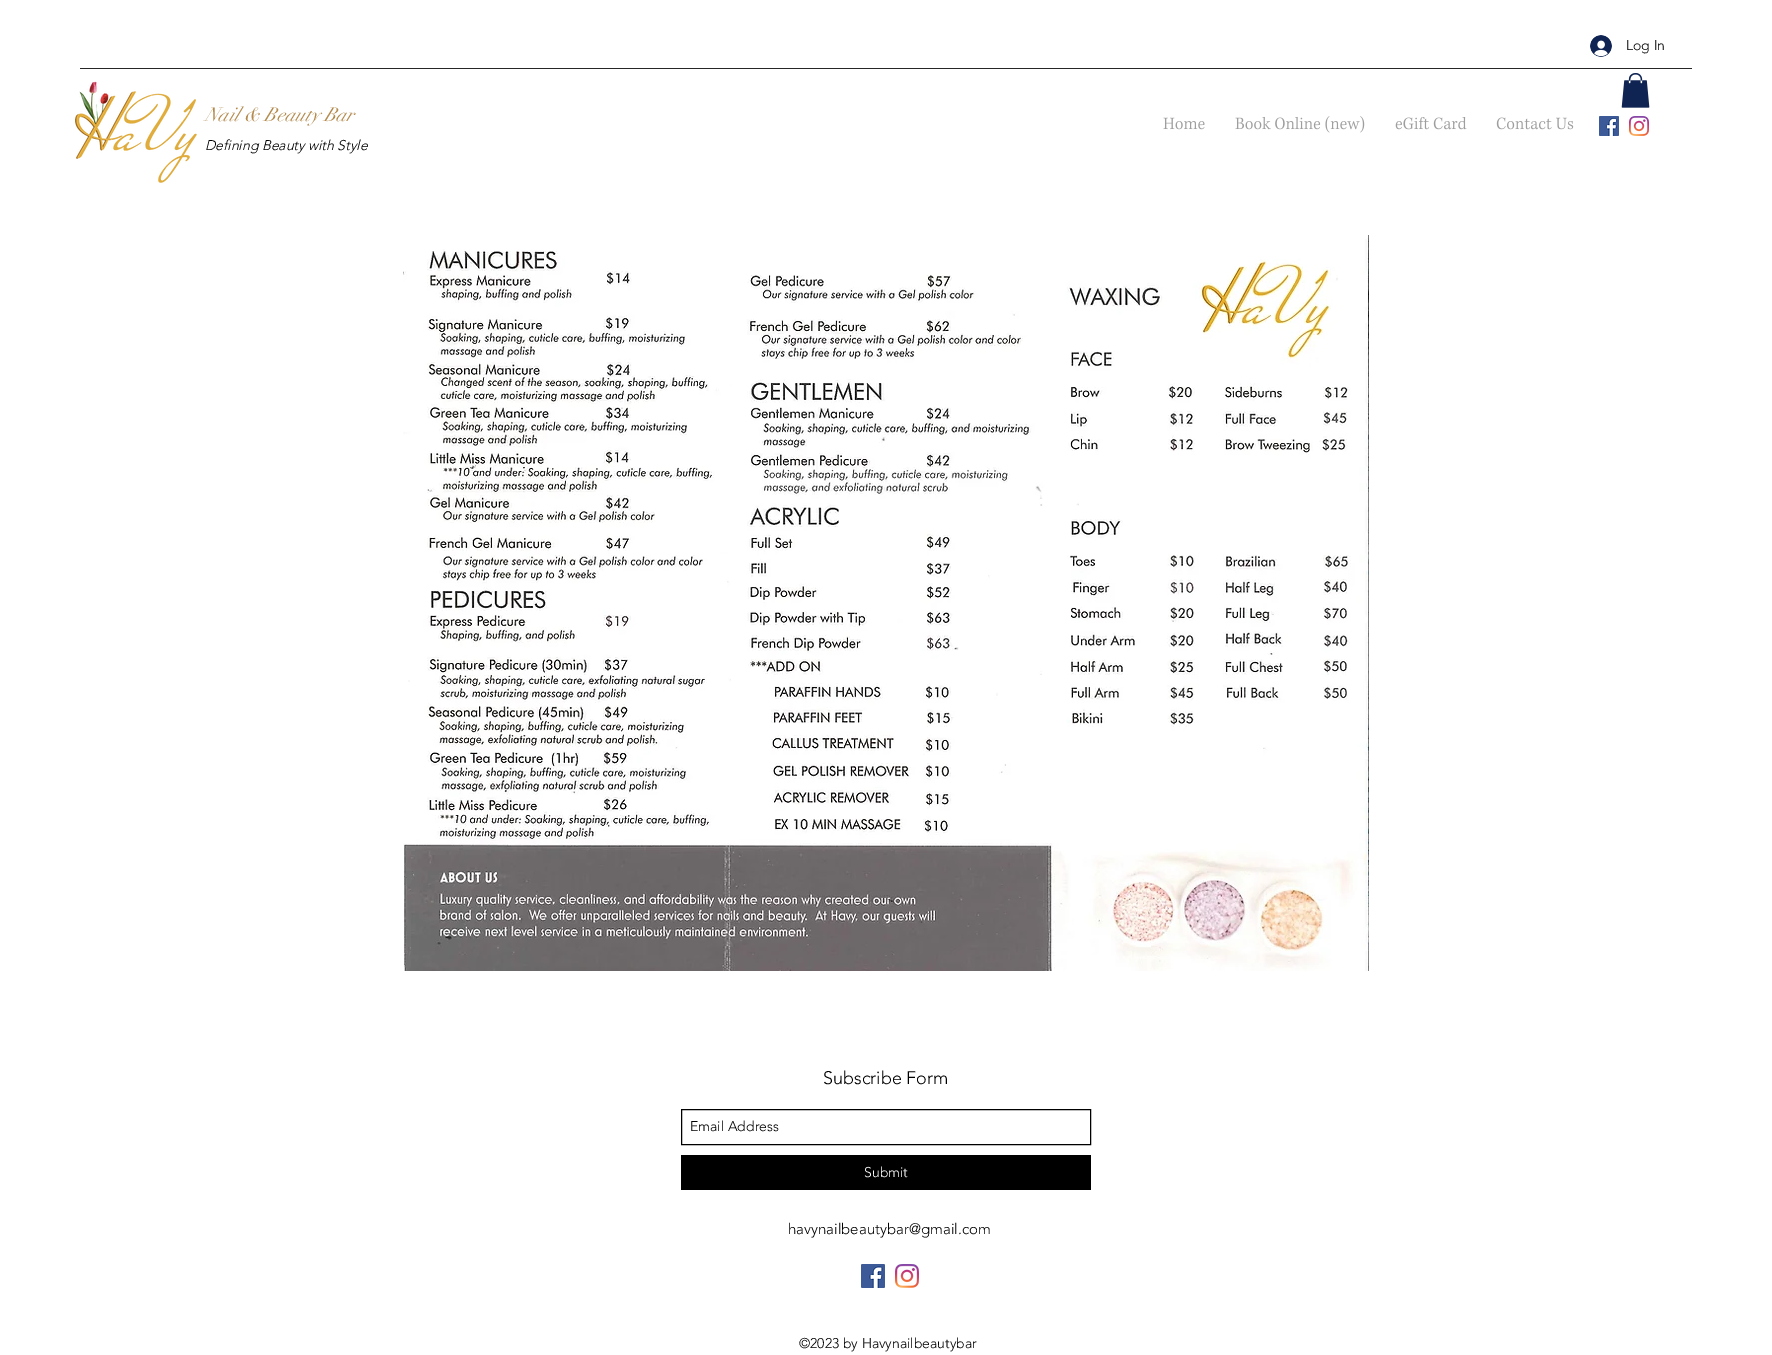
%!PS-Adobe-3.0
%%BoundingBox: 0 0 1772 1355
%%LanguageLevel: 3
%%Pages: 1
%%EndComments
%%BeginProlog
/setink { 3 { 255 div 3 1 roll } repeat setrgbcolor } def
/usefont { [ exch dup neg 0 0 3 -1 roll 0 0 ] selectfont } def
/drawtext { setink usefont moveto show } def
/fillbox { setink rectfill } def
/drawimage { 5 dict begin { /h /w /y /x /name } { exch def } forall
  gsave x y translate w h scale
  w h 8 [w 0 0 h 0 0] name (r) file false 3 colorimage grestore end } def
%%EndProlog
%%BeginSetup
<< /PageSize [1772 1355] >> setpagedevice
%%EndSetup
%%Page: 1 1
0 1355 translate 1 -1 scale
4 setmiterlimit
0 0 1772 1355 255 255 255 fillbox
(assets/img1.rgb) 1590 35 22 22 drawimage
(Log In) 1626 50 /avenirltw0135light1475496-Light 14 0 0 0 drawtext
80 68 1612 1 38 38 38 fillbox
(assets/img2.rgb) 75 81 122 102 drawimage
(Nail & Beauty Bar) 205 121 /didot-Italic 19 179 138 76 drawtext
(Defining Beauty with Style) 205 150 /avenirltw0135light1475496-LightItalic 14 0 0 0 drawtext
(assets/img3.rgb) 1621 73 29 35 drawimage
(assets/img4.rgb) 1163 117 42 13 drawimage
(assets/img5.rgb) 1235 116 130 17 drawimage
(assets/img6.rgb) 1395 117 72 13 drawimage
(assets/img7.rgb) 1496 117 78 13 drawimage
(assets/img8.rgb) 1599 116 20 20 drawimage
(assets/img9.rgb) 1629 116 20 20 drawimage
(assets/img10.rgb) 403 235 966 736 drawimage
(Subscribe Form) 823 1084 /avenirltw0135light1475496-Light 18 0 0 0 drawtext
681.5 1109.5 409 35 rectstroke
(Email Address) 690 1131 /avenirltw0135light1475496-Light 14 0 0 0 drawtext
681 1155 410 35 0 0 0 fillbox
(Submit) 864 1177 /avenirltw0135light1475496-Light 14 255 255 255 drawtext
(havynailbeautybar@gmail.com) 788 1234 /avenirltw0135light1475496-Light 15 0 0 0 drawtext
(assets/img11.rgb) 861 1264 24 24 drawimage
(assets/img12.rgb) 895 1264 24 24 drawimage
(©2023 by Havynailbeautybar) 799 1348 /avenirltw0135light1475496-Light 14 0 0 0 drawtext
showpage
%%EOF
